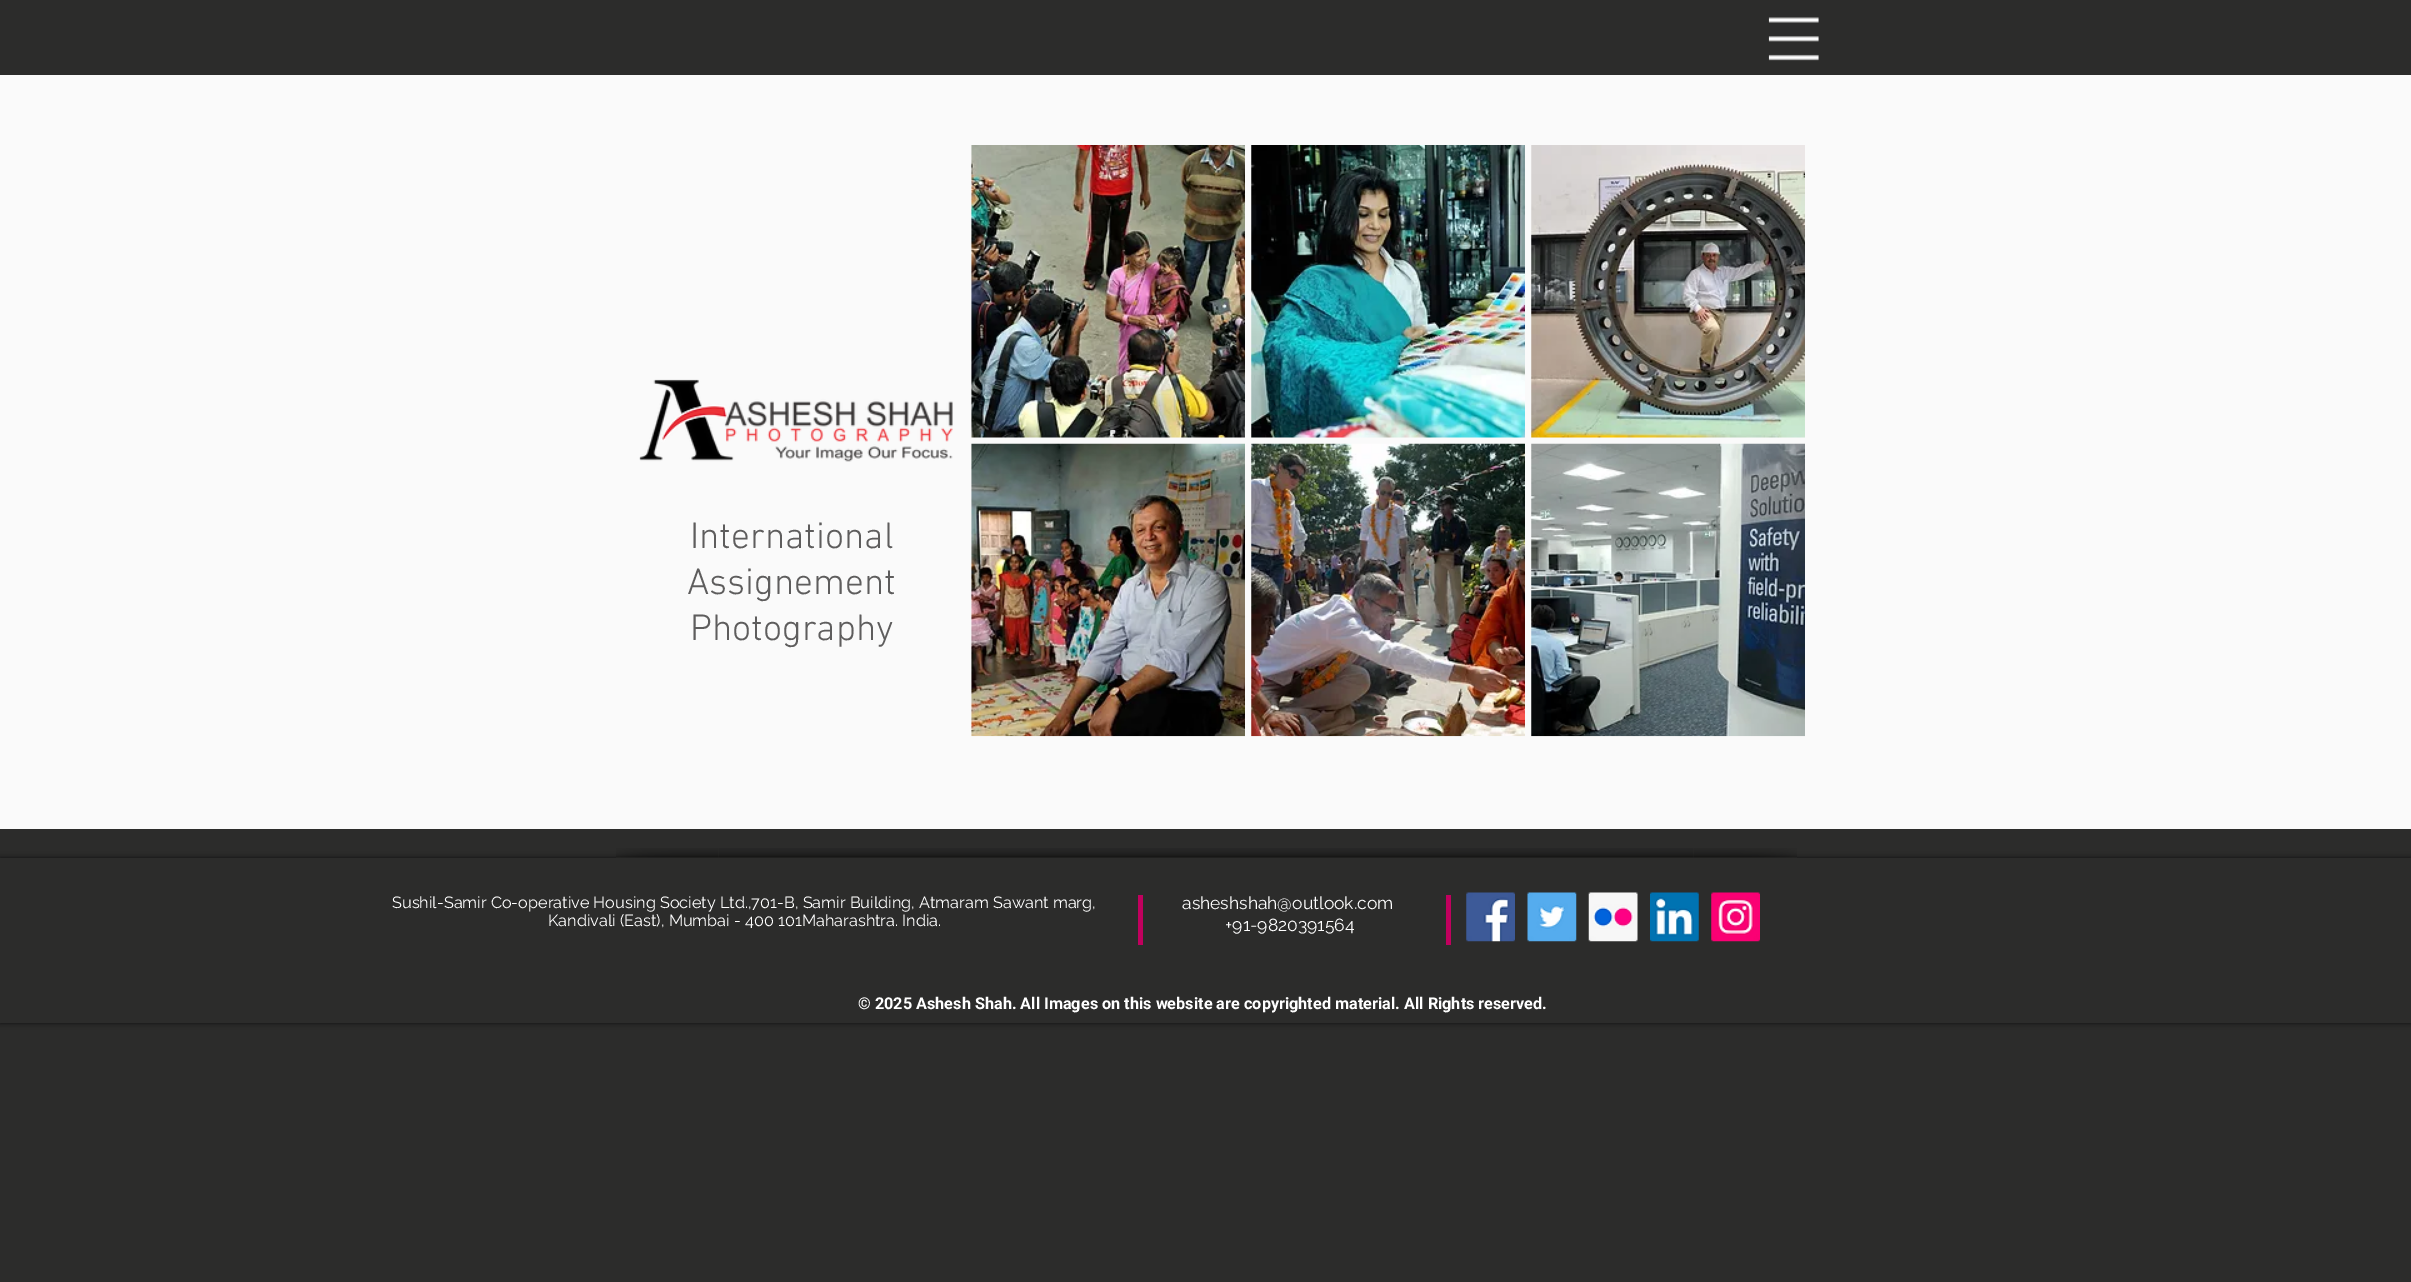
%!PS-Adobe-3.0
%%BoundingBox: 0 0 2411 1282
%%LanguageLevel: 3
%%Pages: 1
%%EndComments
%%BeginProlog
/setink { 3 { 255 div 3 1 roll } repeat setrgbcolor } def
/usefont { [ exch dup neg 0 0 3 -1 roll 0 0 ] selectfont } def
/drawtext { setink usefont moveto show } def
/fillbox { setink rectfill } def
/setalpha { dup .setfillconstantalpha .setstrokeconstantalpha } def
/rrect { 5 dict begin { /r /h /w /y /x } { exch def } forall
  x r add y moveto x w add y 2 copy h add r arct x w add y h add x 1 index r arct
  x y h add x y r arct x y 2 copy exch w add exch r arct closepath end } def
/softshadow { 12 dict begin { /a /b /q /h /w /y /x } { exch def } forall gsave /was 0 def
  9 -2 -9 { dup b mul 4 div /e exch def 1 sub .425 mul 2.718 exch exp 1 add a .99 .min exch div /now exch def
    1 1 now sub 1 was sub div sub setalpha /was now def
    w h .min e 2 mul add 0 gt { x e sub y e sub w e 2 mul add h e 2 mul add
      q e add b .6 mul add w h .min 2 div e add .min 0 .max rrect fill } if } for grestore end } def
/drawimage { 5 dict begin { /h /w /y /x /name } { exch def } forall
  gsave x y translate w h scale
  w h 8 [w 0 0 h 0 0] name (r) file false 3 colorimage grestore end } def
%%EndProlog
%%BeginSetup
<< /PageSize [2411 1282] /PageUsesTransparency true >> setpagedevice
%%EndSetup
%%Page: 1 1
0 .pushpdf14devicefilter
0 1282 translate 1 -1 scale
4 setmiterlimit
0 0 2411 1282 44 44 43 fillbox
(assets/img1.rgb) 1768 17 51 44 drawimage
0 75 2411 754 250 250 250 fillbox
(assets/img2.rgb) 639 379 314 83 drawimage
(assets/img3.rgb) 971 145 274 293 drawimage
(assets/img4.rgb) 1251 145 274 293 drawimage
(assets/img5.rgb) 1531 145 274 293 drawimage
(assets/img6.rgb) 971 443 274 294 drawimage
(assets/img7.rgb) 1251 443 274 294 drawimage
(assets/img8.rgb) 1531 443 274 294 drawimage
(International) 690 548 /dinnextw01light-Light 37.5 94 93 93 drawtext
(Assignement) 687 594 /dinnextw01light-Light 37.5 94 93 93 drawtext
(Photography) 690 640 /dinnextw01light-Light 37.5 94 93 93 drawtext
0 0 0 setink
0 858 2411 165 0 3 0.7 softshadow
0 858 2411 165 44 44 43 fillbox
(assets/img9.rgb) 616 848 103 10 drawimage
(assets/img10.rgb) 719 848 975 10 drawimage
(assets/img11.rgb) 1694 848 103 10 drawimage
(Sushil-Samir Co-operative Housing Society Ltd.,701-B, Samir Building, Atmaram Sawant marg,) 392 908 /Raleway-Regular 16.25 255 255 255 drawtext
(Kandivali \(East\), Mumbai - 400 101Maharashtra. India.) 548 926 /Raleway-Regular 16.25 255 255 255 drawtext
1138 895 5 50 193 0 94 fillbox
(asheshshah@outlook.com) 1182 909 /Raleway-Regular 17.5 255 255 255 drawtext
(+91-9820391564) 1225 931 /Raleway-Regular 17.5 255 255 255 drawtext
1446 895 5 50 193 0 94 fillbox
(assets/img12.rgb) 1466 892 49 50 drawimage
(assets/img13.rgb) 1527 892 50 50 drawimage
(assets/img14.rgb) 1588 892 50 50 drawimage
(assets/img15.rgb) 1650 892 49 50 drawimage
(assets/img16.rgb) 1711 892 49 50 drawimage
(© 2025 Ashesh Shah. All Images on this website are copyrighted material. All Rights reserved.) 858 1009 /Roboto-Bold 16.25 255 255 255 drawtext
.poppdf14devicefilter showpage
%%EOF
